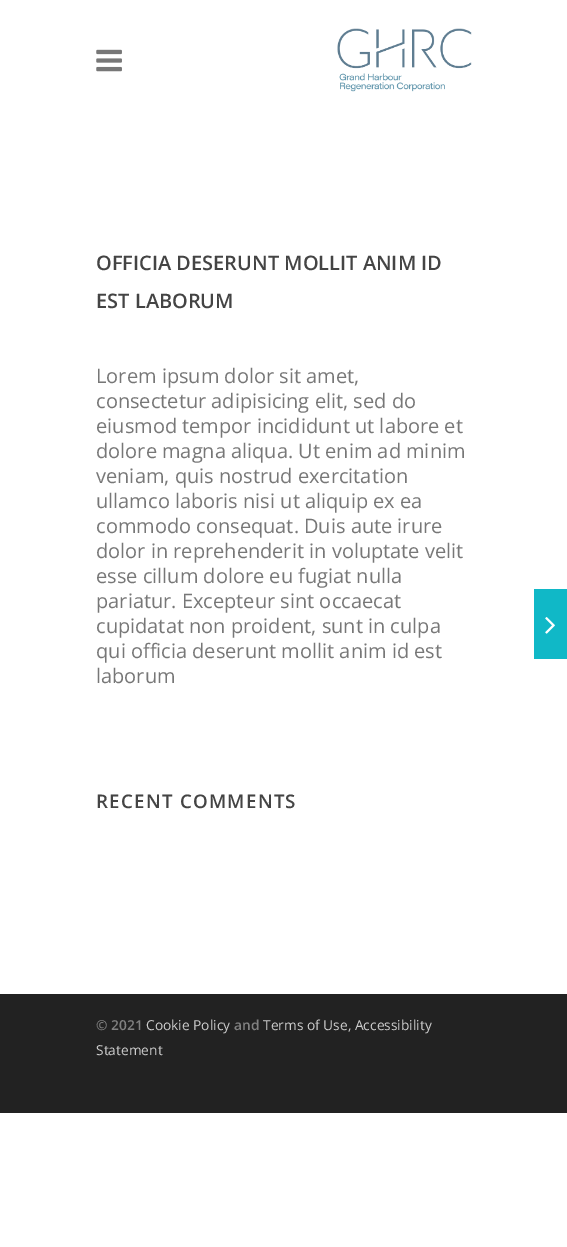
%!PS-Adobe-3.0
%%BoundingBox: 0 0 567 1247
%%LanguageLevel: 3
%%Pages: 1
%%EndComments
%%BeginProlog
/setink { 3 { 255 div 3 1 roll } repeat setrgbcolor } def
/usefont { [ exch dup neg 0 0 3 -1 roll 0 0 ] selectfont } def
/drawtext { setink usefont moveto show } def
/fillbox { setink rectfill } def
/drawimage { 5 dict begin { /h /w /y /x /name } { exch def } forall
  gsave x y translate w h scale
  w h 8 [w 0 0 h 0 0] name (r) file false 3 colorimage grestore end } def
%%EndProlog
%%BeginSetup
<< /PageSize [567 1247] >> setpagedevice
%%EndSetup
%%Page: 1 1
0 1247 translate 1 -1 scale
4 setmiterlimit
0 0 567 1247 255 255 255 fillbox
(assets/img1.rgb) 96 49 26 23 drawimage
(assets/img2.rgb) 337 28 135 64 drawimage
(OFFICIA DESERUNT MOLLIT ANIM ID) 96 270 /OpenSans-SemiBold 20 68 68 68 drawtext
(EST LABORUM) 96 308 /OpenSans-SemiBold 20 68 68 68 drawtext
(Lorem ipsum dolor sit amet,) 96 383 /OpenSans-Regular 20 119 119 119 drawtext
(consectetur adipisicing elit, sed do) 96 408 /OpenSans-Regular 20 119 119 119 drawtext
(eiusmod tempor incididunt ut labore et) 96 433 /OpenSans-Regular 20 119 119 119 drawtext
(dolore magna aliqua. Ut enim ad minim) 96 458 /OpenSans-Regular 20 119 119 119 drawtext
(veniam, quis nostrud exercitation) 96 483 /OpenSans-Regular 20 119 119 119 drawtext
(ullamco laboris nisi ut aliquip ex ea) 96 508 /OpenSans-Regular 20 119 119 119 drawtext
(commodo consequat. Duis aute irure) 96 533 /OpenSans-Regular 20 119 119 119 drawtext
(dolor in reprehenderit in voluptate velit) 96 558 /OpenSans-Regular 20 119 119 119 drawtext
(esse cillum dolore eu fugiat nulla) 96 583 /OpenSans-Regular 20 119 119 119 drawtext
(pariatur. Excepteur sint occaecat) 96 608 /OpenSans-Regular 20 119 119 119 drawtext
(cupidatat non proident, sunt in culpa) 96 633 /OpenSans-Regular 20 119 119 119 drawtext
(qui officia deserunt mollit anim id est) 96 658 /OpenSans-Regular 20 119 119 119 drawtext
(laborum) 96 683 /OpenSans-Regular 20 119 119 119 drawtext
/OpenSans-SemiBold 18.75 usefont
68 68 68 setink
96 808 moveto 1.25 0 (RECENT COMMENTS) ashow
534 589 33 70 16 184 199 fillbox
(assets/img3.rgb) 545 617 10 17 drawimage
0 994 567 119 34 34 34 fillbox
(© 2021) 96 1030 /OpenSans-SemiBold 13.75 129 129 129 drawtext
(Cookie Policy) 146 1030 /OpenSans-Regular 13.75 205 205 205 drawtext
(and) 234 1030 /OpenSans-SemiBold 13.75 129 129 129 drawtext
(Terms of Use, Accessibility) 263 1030 /OpenSans-Regular 13.75 205 205 205 drawtext
(Statement) 96 1055 /OpenSans-Regular 13.75 205 205 205 drawtext
showpage
%%EOF
